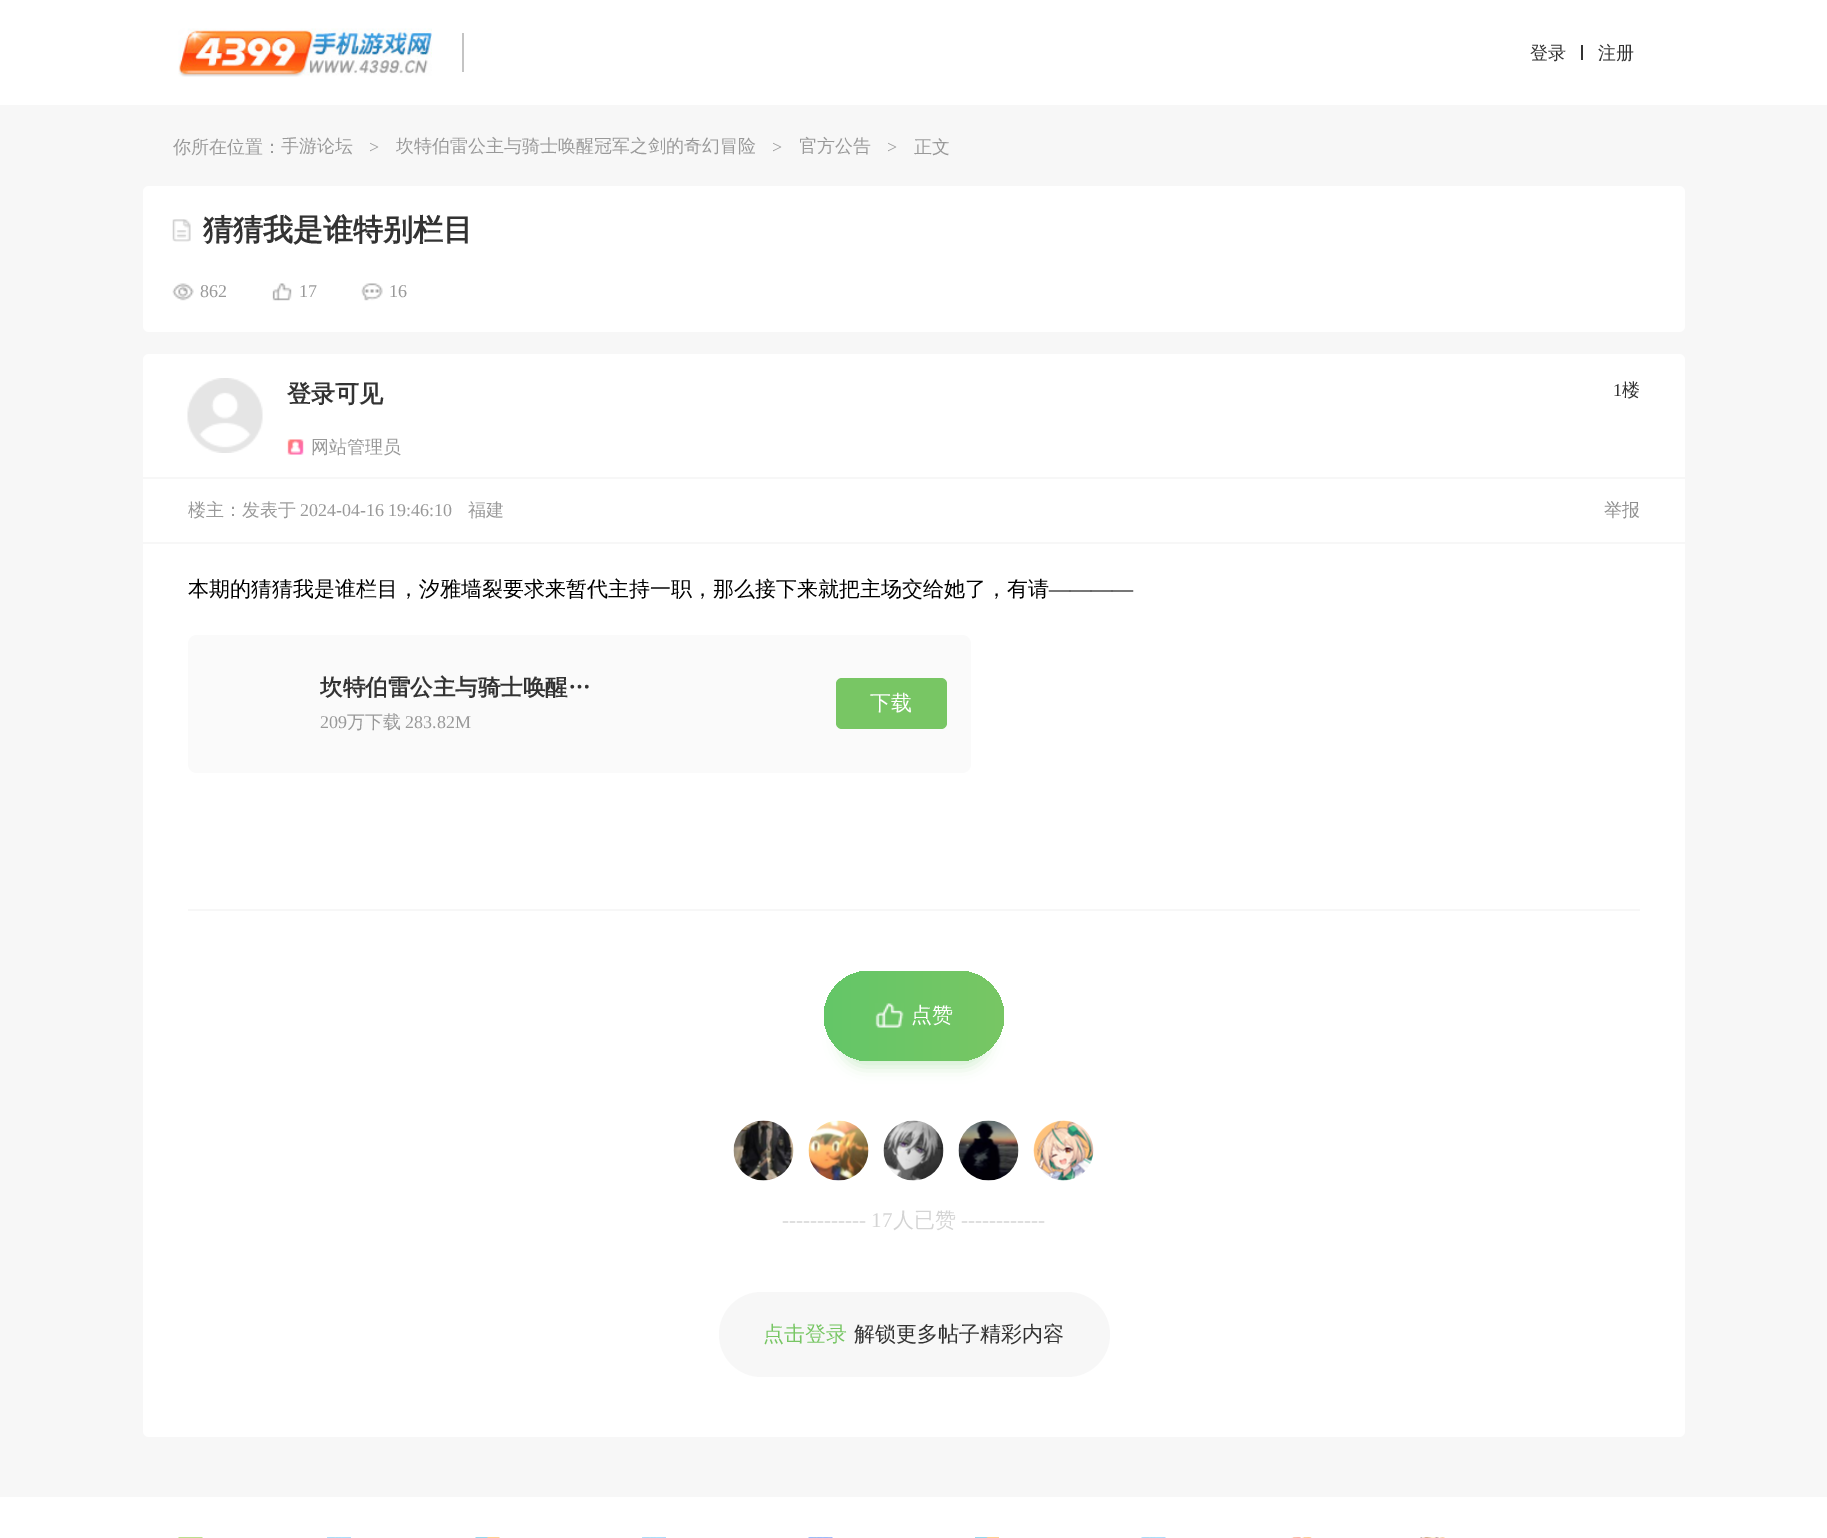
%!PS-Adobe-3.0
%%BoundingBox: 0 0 1827 1538
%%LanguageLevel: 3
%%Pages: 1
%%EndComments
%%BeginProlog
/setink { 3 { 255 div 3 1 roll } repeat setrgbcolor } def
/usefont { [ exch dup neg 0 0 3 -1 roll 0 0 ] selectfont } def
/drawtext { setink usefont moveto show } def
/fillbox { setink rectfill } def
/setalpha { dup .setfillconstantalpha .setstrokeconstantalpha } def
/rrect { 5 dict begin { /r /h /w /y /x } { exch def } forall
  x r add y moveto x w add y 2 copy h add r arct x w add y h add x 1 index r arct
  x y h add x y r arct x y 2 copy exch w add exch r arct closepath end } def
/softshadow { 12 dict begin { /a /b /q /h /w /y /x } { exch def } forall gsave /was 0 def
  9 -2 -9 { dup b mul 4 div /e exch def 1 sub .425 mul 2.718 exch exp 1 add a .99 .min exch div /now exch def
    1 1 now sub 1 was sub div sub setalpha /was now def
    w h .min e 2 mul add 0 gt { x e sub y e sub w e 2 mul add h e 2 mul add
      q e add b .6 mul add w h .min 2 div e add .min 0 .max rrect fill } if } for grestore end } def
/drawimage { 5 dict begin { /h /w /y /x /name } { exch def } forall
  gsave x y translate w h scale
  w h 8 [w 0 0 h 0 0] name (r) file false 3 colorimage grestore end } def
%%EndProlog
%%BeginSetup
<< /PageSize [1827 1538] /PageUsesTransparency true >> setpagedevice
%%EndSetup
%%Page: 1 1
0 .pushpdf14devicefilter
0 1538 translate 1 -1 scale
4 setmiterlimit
0 0 1827 1538 247 247 247 fillbox
0 0 1827 105 255 255 255 fillbox
(assets/img1.rgb) 178 28 254 49 drawimage
462 33 2 39 196 196 196 fillbox
(登录) 1530 59 /WenQuanYiZenHei-Medium 18 51 51 51 drawtext
1581 45 2 15 51 51 51 fillbox
(注册) 1598 59 /WenQuanYiZenHei-Medium 18 51 51 51 drawtext
(你所在位置：) 173 153 /WenQuanYiZenHei-Medium 18 153 153 153 drawtext
(手游论坛) 281 152 /WenQuanYiZenHei-Medium 18 153 153 153 drawtext
(>) 369 153 /LiberationSerif-Regular 18 153 153 153 drawtext
(坎特伯雷公主与骑士唤醒冠军之剑的奇幻冒险) 396 152 /WenQuanYiZenHei-Medium 18 153 153 153 drawtext
(>) 772 153 /LiberationSerif-Regular 18 153 153 153 drawtext
gsave
800 135 72 21 rectclip
(官方公告) 799 152 /WenQuanYiZenHei-Medium 18 153 153 153 drawtext
grestore
(>) 887 153 /LiberationSerif-Regular 18 153 153 153 drawtext
(正文) 914 153 /WenQuanYiZenHei-Medium 18 153 153 153 drawtext
255 255 255 setink
143 186 1542 146 6 rrect fill
(assets/img2.rgb) 172 219 19 23 drawimage
(猜猜我是谁特别栏目) 203 240 /WenQuanYiZenHei-Bold 30 51 51 51 drawtext
(assets/img3.rgb) 172 283 22 18 drawimage
(862) 200 297 /LiberationSerif-Regular 18 153 153 153 drawtext
(assets/img4.rgb) 272 283 20 18 drawimage
(17) 299 297 /LiberationSerif-Regular 18 153 153 153 drawtext
(assets/img5.rgb) 361 283 22 18 drawimage
(16) 389 297 /LiberationSerif-Regular 18 153 153 153 drawtext
255 255 255 setink
143 354 1542 1083 6 rrect fill
(assets/img6.rgb) 187 378 76 75 drawimage
(登录可见) 287 402 /WenQuanYiZenHei-Bold 24 51 51 51 drawtext
(assets/img7.rgb) 287 439 17 16 drawimage
(网站管理员) 311 453 /WenQuanYiZenHei-Medium 18 153 153 153 drawtext
(1) 1613 396 /LiberationSerif-Regular 18 51 51 51 drawtext
(楼) 1622 396 /WenQuanYiZenHei-Medium 18 51 51 51 drawtext
143 477 1542 2 247 247 247 fillbox
143 542 1542 2 247 247 247 fillbox
(楼主：发表于) 188 516 /WenQuanYiZenHei-Medium 18 153 153 153 drawtext
(2024-04-16 19:46:10) 300 516 /LiberationSerif-Regular 18 153 153 153 drawtext
(福建) 468 516 /WenQuanYiZenHei-Medium 18 153 153 153 drawtext
(举报) 1604 516 /WenQuanYiZenHei-Medium 18 143 143 143 drawtext
(本期的猜猜我是谁栏目，汐雅墙裂要求来暂代主持一职，那么接下来就把主场交给她了，有请) 188 596 /WenQuanYiZenHei-Medium 21 0 0 0 drawtext
(————) 1049 596 /LiberationSerif-Regular 21 0 0 0 drawtext
250 250 250 setink
188 635 783 138 9 rrect fill
gsave
320 669 270 36 rectclip
(坎特伯雷公主与骑士唤醒…) 320 695 /WenQuanYiZenHei-Bold 22.5 51 51 51 drawtext
grestore
(209) 320 728 /LiberationSerif-Regular 18 153 153 153 drawtext
(万下载) 347 728 /WenQuanYiZenHei-Medium 18 153 153 153 drawtext
(283.82M) 405 728 /LiberationSerif-Regular 18 153 153 153 drawtext
120 198 100 setink
836 678 111 51 6 rrect fill
(下载) 870 710 /WenQuanYiZenHei-Medium 21 255 255 255 drawtext
188 909 1452 2 247 247 247 fillbox
105 198 103 setink
839 1007 150 60 30 7.5 0.3 softshadow
gsave 824 971 180 90 45 rrect clip newpath
<< /ShadingType 2 /ColorSpace /DeviceRGB /Coords [824 1016 1004 1016] /Extend [true true] /Function << /FunctionType 2 /Domain [0 1] /C0 [0.392 0.776 0.408] /C1 [0.471 0.776 0.392] /N 1 >> >> shfill grestore
(assets/img8.rgb) 875 1003 29 25 drawimage
(点赞) 911 1022 /WenQuanYiZenHei-Medium 21 255 255 255 drawtext
(assets/img9.rgb) 733 1120 61 61 drawimage
(assets/img10.rgb) 808 1120 61 61 drawimage
(assets/img11.rgb) 883 1120 61 61 drawimage
(assets/img12.rgb) 958 1120 61 61 drawimage
(assets/img13.rgb) 1033 1120 61 61 drawimage
(------------ 17) 782 1227 /LiberationSerif-Regular 21 212 212 212 drawtext
(人已赞) 893 1227 /WenQuanYiZenHei-Medium 21 212 212 212 drawtext
(------------) 961 1227 /LiberationSerif-Regular 21 212 212 212 drawtext
247 247 247 setink
719 1292 391 85 42.5 rrect fill
(点击登录) 763 1341 /WenQuanYiZenHei-Medium 21 120 198 100 drawtext
(解锁更多帖子精彩内容) 854 1341 /WenQuanYiZenHei-Medium 21 51 51 51 drawtext
0 1497 1827 41 255 255 255 fillbox
(assets/img14.rgb) 178 1537 25 1 drawimage
(assets/img15.rgb) 327 1537 24 1 drawimage
(assets/img16.rgb) 475 1537 25 1 drawimage
(assets/img17.rgb) 642 1537 24 1 drawimage
(assets/img18.rgb) 808 1537 25 1 drawimage
(assets/img19.rgb) 975 1537 24 1 drawimage
(assets/img20.rgb) 1141 1537 25 1 drawimage
(assets/img21.rgb) 1291 1537 21 1 drawimage
(assets/img22.rgb) 1420 1537 25 1 drawimage
.poppdf14devicefilter showpage
%%EOF
